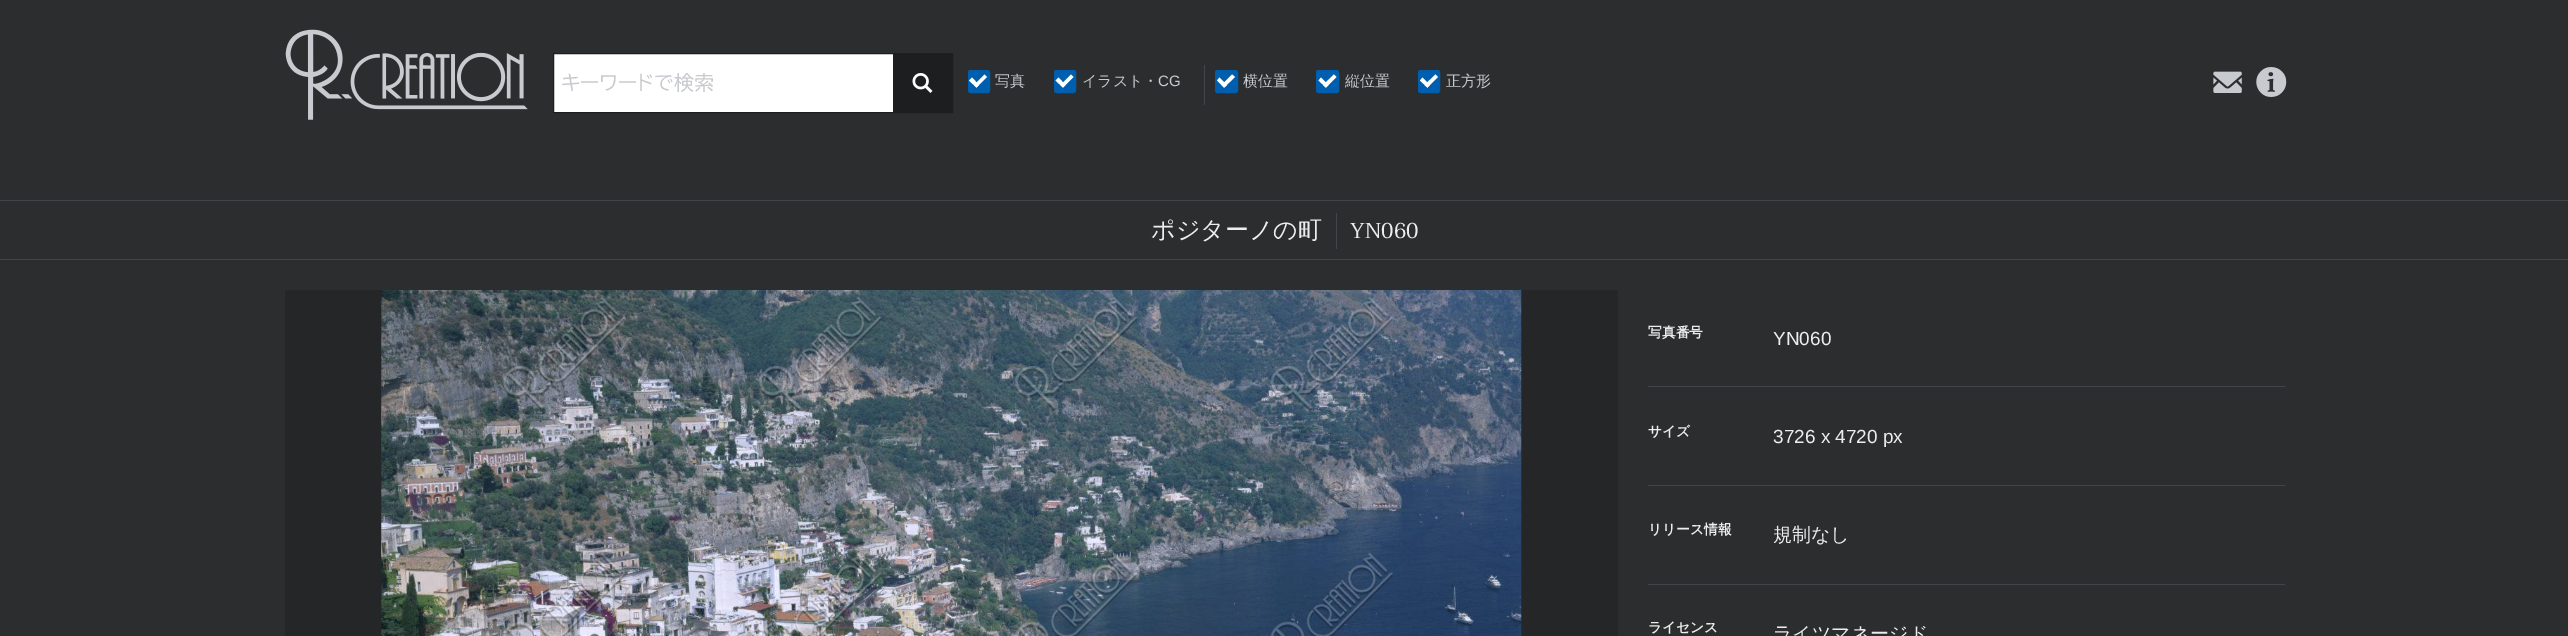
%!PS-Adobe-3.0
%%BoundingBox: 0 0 2568 636
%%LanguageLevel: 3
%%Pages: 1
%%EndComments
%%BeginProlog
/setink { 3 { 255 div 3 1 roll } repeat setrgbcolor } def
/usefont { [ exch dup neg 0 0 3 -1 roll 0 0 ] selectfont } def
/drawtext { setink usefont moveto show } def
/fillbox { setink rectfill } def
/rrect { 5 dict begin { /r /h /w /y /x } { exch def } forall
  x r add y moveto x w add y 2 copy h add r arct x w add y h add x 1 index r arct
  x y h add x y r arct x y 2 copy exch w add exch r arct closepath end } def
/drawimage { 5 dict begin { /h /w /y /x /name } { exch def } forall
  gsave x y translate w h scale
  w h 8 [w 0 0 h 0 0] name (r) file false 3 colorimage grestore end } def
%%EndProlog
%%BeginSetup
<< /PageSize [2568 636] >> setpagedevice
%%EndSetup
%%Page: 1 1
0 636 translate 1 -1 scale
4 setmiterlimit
0 0 2568 636 44 45 47 fillbox
(assets/img1.rgb) 285 29 243 91 drawimage
554 54 339 58 255 255 255 fillbox
29 30 31 setink
553.5 53.5 399 59 rectstroke
gsave
561 73 325 20 rectclip
(キーワードで検索) 561 90 /BIZUDPGothic-Regular 20 199 202 206 drawtext
grestore
893 54 59 58 29 30 31 fillbox
(assets/img2.rgb) 912 73 21 20 drawimage
0 94 174 setink
969.5 71.5 19 20 1 rrect gsave fill grestore
3 setlinewidth
stroke
(写真) 995 86 /WenQuanYiZenHei-Medium 15 199 202 206 drawtext
255 255 255 setink
974 85 moveto 984.5 74.5 lineto 987 77 lineto 976.5 87.5 lineto closepath fill
969 80.5 moveto 972 77.5 lineto 979 85 lineto 976.5 87.5 lineto closepath fill
0 94 174 setink
1055.5 71.5 19 20 1 rrect gsave fill grestore
stroke
255 255 255 setink
1060.5 85 moveto 1071 74.5 lineto 1073.5 77 lineto 1063 87.5 lineto closepath fill
1055.5 80.5 moveto 1058.5 77.5 lineto 1065.5 85 lineto 1063 87.5 lineto closepath fill
(イラスト・) 1082 86 /WenQuanYiZenHei-Medium 15 199 202 206 drawtext
(CG) 1158 86 /LiberationSans-Regular 15 199 202 206 drawtext
1204 65 1 40 64 69 74 fillbox
0 94 174 setink
1216.5 71.5 20 20 1 rrect gsave fill grestore
stroke
(横位置) 1243 86 /WenQuanYiZenHei-Medium 15 199 202 206 drawtext
255 255 255 setink
1221.5 85 moveto 1232 74.5 lineto 1235 77 lineto 1224 87.5 lineto closepath fill
1217 80.5 moveto 1219.5 77.5 lineto 1227 85 lineto 1224 87.5 lineto closepath fill
0 94 174 setink
1317.5 71.5 20 20 1 rrect gsave fill grestore
stroke
(縦位置) 1345 86 /WenQuanYiZenHei-Medium 15 199 202 206 drawtext
255 255 255 setink
1323 85 moveto 1334 74.5 lineto 1336.5 77 lineto 1326 87.5 lineto closepath fill
1318.5 80.5 moveto 1321 77.5 lineto 1328.5 85 lineto 1326 87.5 lineto closepath fill
0 94 174 setink
1419.5 71.5 19 20 1 rrect gsave fill grestore
stroke
(正方形) 1446 86 /WenQuanYiZenHei-Medium 15 199 202 206 drawtext
255 255 255 setink
1424.5 85 moveto 1435.5 74.5 lineto 1438 77 lineto 1427.5 87.5 lineto closepath fill
1420 80.5 moveto 1422.5 77.5 lineto 1430 85 lineto 1427.5 87.5 lineto closepath fill
(assets/img3.rgb) 2213 71 29 22 drawimage
(assets/img4.rgb) 2256 67 31 30 drawimage
0 200 2568 1 64 69 74 fillbox
0 259 2568 1 64 69 74 fillbox
(ポジターノの町) 1151 238 /WenQuanYiZenHei-Medium 24 237 237 237 drawtext
(YN060) 1350 238 /Taviraj-Regular 21.5 237 237 237 drawtext
1336 213 1 36 64 69 74 fillbox
285 290 1333 346 37 38 40 fillbox
(assets/img5.rgb) 381 290 1141 346 drawimage
1648 386 637 1 64 69 74 fillbox
(写真番号) 1648 337 /WenQuanYiZenHei-Bold 13.75 237 237 237 drawtext
(YN060) 1773 345 /LiberationSans-Regular 19 237 237 237 drawtext
1648 485 637 1 64 69 74 fillbox
(サイズ) 1648 436 /WenQuanYiZenHei-Bold 13.75 237 237 237 drawtext
(3726 x 4720 px) 1773 443 /LiberationSans-Regular 19 237 237 237 drawtext
1648 584 637 1 64 69 74 fillbox
(リリース情報) 1648 534 /WenQuanYiZenHei-Bold 13.75 237 237 237 drawtext
(規制なし) 1773 541 /WenQuanYiZenHei-Medium 19 237 237 237 drawtext
(ライセンス) 1648 632 /WenQuanYiZenHei-Bold 13.75 237 237 237 drawtext
(ライツマネージド) 1773 640 /WenQuanYiZenHei-Medium 19 237 237 237 drawtext
showpage
%%EOF
